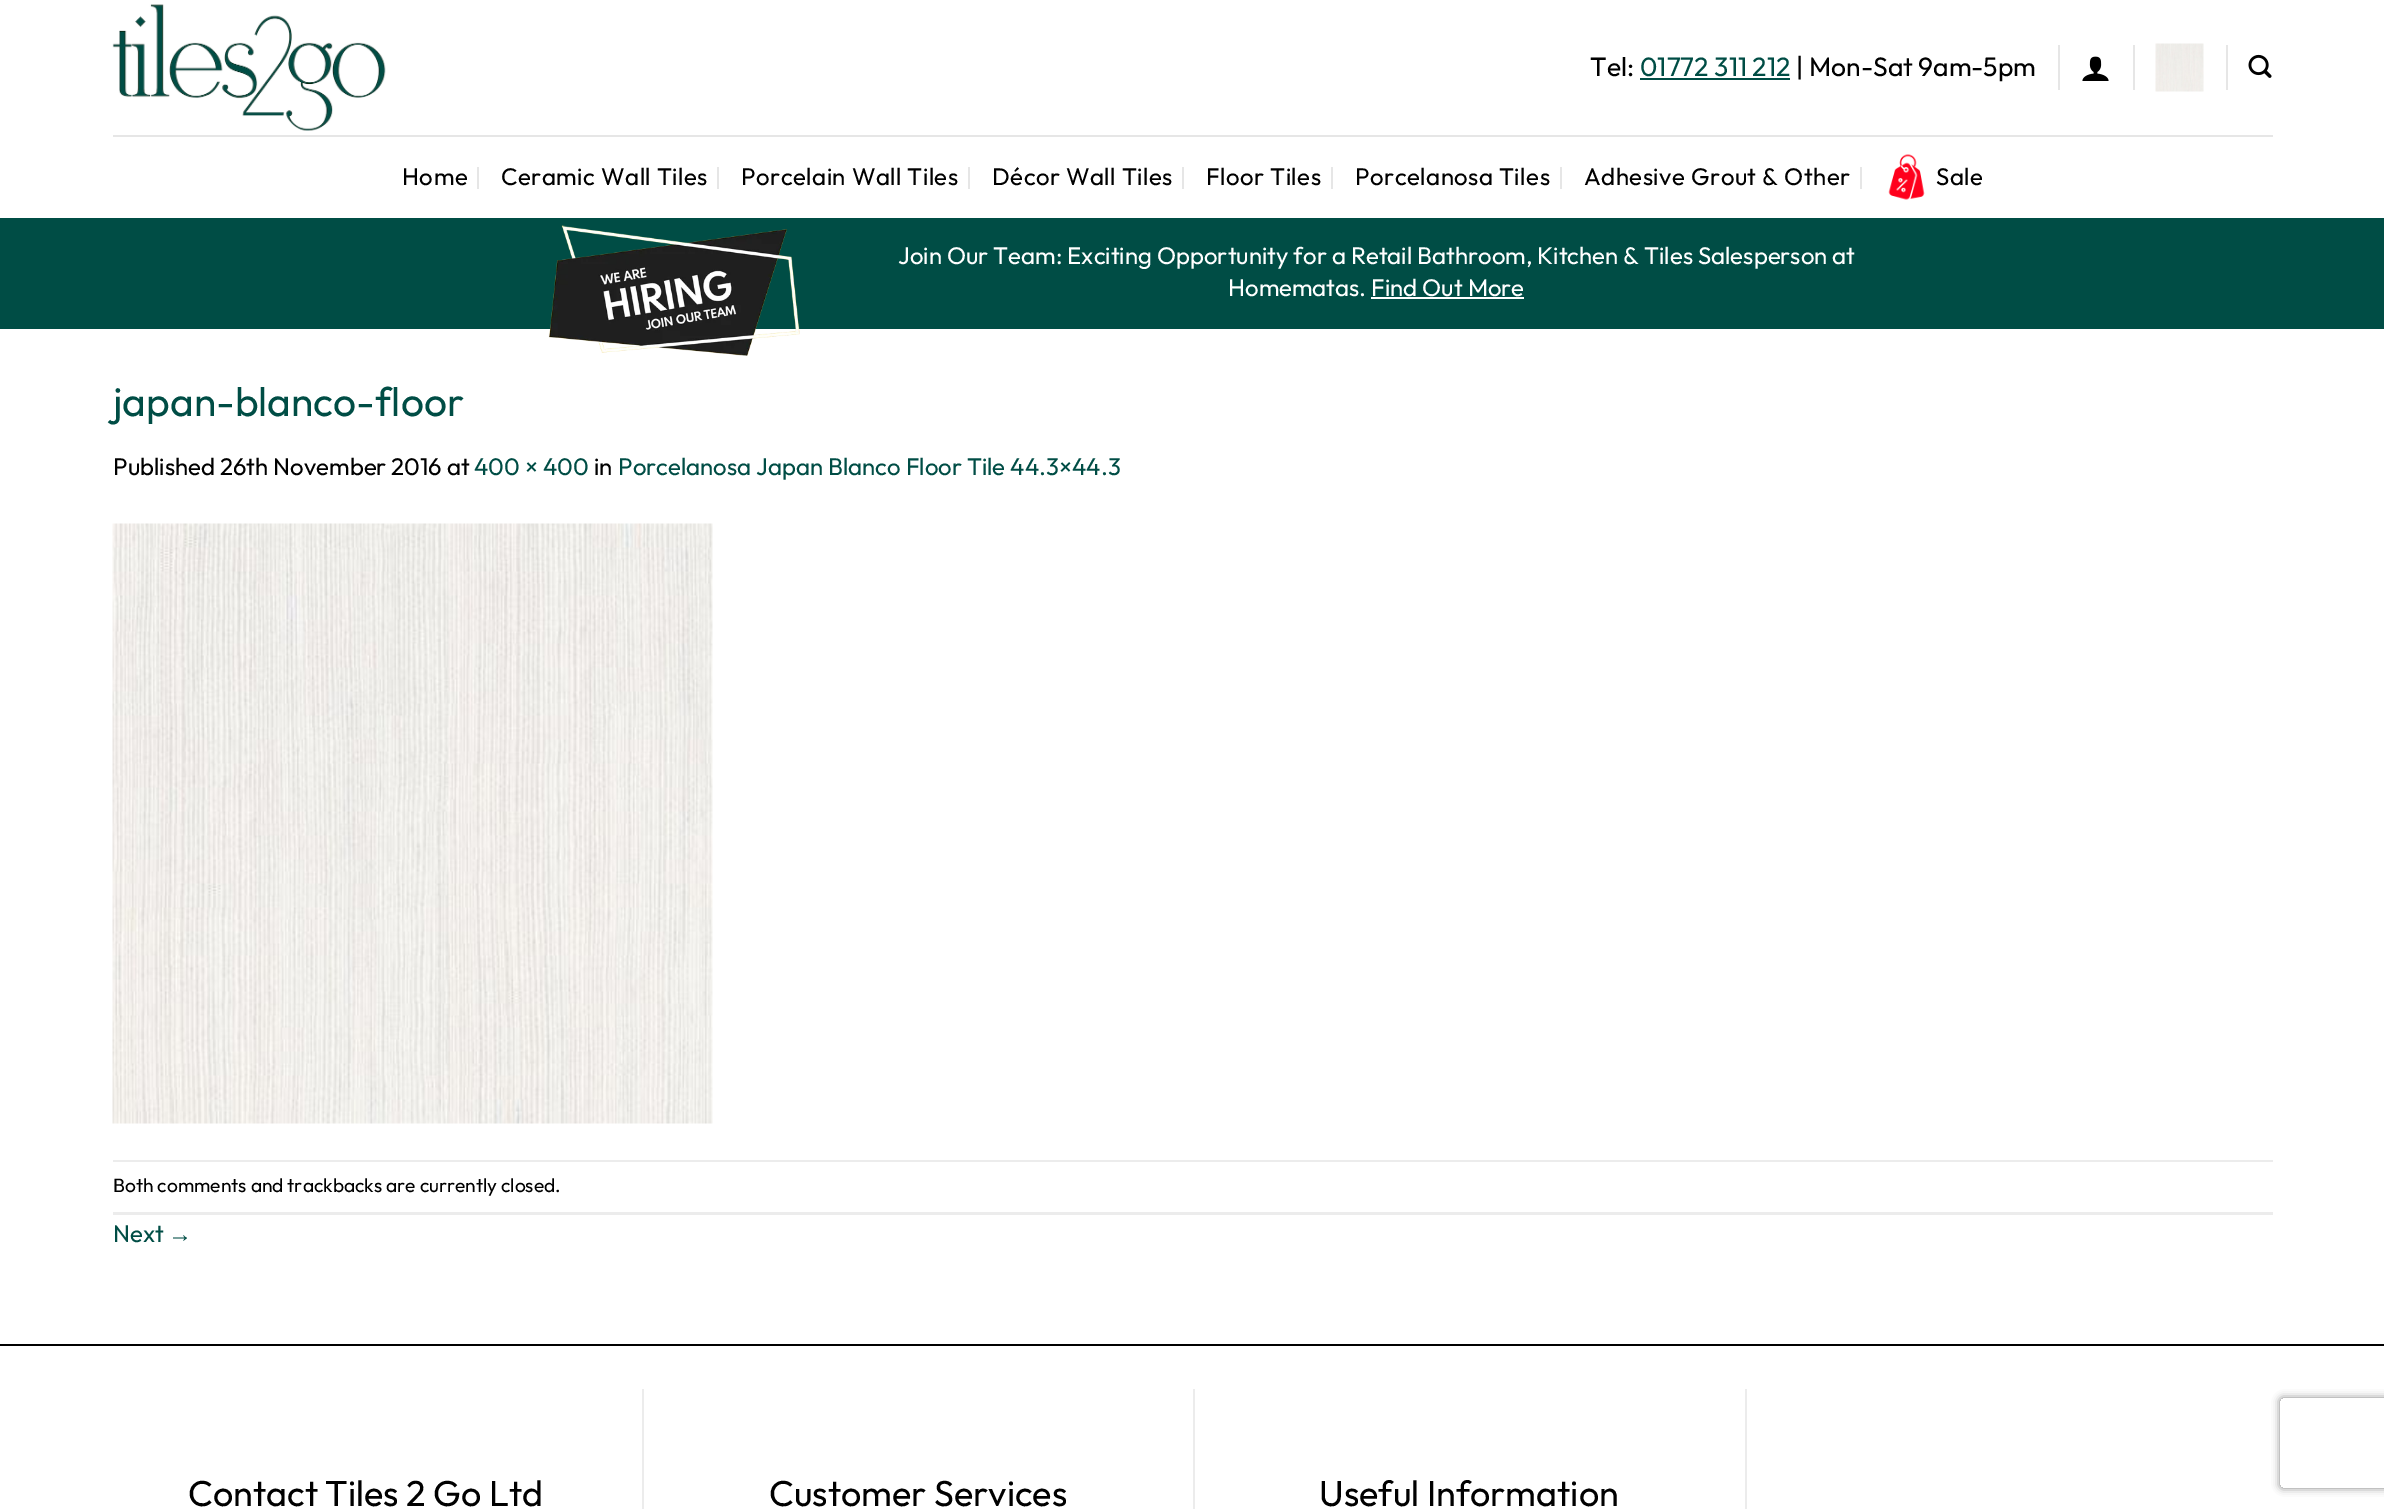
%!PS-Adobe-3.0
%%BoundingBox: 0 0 2384 1509
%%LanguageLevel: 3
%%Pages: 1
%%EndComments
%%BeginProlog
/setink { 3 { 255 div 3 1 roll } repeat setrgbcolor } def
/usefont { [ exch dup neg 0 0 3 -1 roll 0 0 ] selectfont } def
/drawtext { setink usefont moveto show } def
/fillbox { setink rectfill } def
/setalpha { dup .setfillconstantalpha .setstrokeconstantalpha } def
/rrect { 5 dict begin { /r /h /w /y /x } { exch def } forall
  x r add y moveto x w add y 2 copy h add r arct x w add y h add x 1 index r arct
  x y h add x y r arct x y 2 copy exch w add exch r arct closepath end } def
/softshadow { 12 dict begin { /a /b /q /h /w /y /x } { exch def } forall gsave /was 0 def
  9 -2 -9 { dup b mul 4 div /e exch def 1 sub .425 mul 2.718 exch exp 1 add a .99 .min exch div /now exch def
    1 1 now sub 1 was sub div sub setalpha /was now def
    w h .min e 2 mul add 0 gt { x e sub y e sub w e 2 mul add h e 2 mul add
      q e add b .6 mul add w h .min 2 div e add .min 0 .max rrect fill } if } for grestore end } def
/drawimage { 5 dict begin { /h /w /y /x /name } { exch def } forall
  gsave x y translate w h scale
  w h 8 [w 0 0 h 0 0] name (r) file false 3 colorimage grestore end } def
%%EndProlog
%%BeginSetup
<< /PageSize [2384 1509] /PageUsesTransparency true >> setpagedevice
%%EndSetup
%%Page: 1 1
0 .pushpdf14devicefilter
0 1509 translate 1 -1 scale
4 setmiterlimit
0 0 2384 1509 255 255 255 fillbox
(assets/img1.rgb) 112 4 274 127 drawimage
(Tel:) 1590 76 /Outfit-Thin 26.5 0 0 0 drawtext
(01772 311 212) 1640 76 /Outfit-Thin 26.5 0 77 69 drawtext
1640 78 150 2 0 77 69 fillbox
(| Mon-Sat 9am-5pm) 1796 76 /Outfit-Thin 26.5 0 0 0 drawtext
2058 45 2 45 230 230 230 fillbox
(assets/img2.rgb) 2082 56 27 25 drawimage
2133 45 2 45 230 230 230 fillbox
(assets/img3.rgb) 2155 43 49 49 drawimage
2226 45 2 45 230 230 230 fillbox
(assets/img4.rgb) 2248 54 24 24 drawimage
113 135 2160 2 230 230 230 fillbox
/Outfit-Thin 24 usefont
0 0 0 setink
402 185 moveto 0.5 0 (Home) ashow
477 167 2 22 230 230 230 fillbox
0 0 0 setink
501 185 moveto 0.5 0 (Ceramic Wall Tiles) ashow
717 167 2 22 230 230 230 fillbox
0 0 0 setink
741 185 moveto 0.5 0 (Porcelain Wall Tiles) ashow
968 167 2 22 230 230 230 fillbox
0 0 0 setink
992 185 moveto 0.5 0 (Décor Wall Tiles) ashow
1182 167 2 22 230 230 230 fillbox
0 0 0 setink
1206 185 moveto 0.5 0 (Floor Tiles) ashow
1331 167 2 22 230 230 230 fillbox
0 0 0 setink
1355 185 moveto 0.5 0 (Porcelanosa Tiles) ashow
1560 167 2 22 230 230 230 fillbox
0 0 0 setink
1584 185 moveto 0.5 0 (Adhesive Grout & Other) ashow
1860 167 2 22 230 230 230 fillbox
(assets/img5.rgb) 1888 154 37 46 drawimage
0 0 0 setink
1936 185 moveto 0.5 0 (Sale) ashow
0 218 2384 111 0 77 69 fillbox
(assets/img6.rgb) 548 225 252 131 drawimage
(Join Our Team: Exciting Opportunity for a Retail Bathroom, Kitchen & Tiles Salesperson at) 898 264 /Outfit-Thin 24 255 255 255 drawtext
(Homematas. Find Out More) 1228 296 /Outfit-Thin 24 255 255 255 drawtext
1371 297 153 2 255 255 255 fillbox
(japan-blanco-floor) 113 416 /Outfit-Thin 40.75 0 77 69 drawtext
(Published 26th November 2016 at) 113 475 /Outfit-Thin 24 0 0 0 drawtext
(400 × 400) 474 475 /Outfit-Thin 24 0 77 69 drawtext
(in) 594 475 /Outfit-Thin 24 0 0 0 drawtext
(Porcelanosa Japan Blanco Floor Tile 44.3×44.3) 618 475 /Outfit-Thin 24 0 77 69 drawtext
(assets/img7.rgb) 112 523 601 601 drawimage
113 1160 2160 2 236 236 236 fillbox
113 1212 2160 3 236 236 236 fillbox
(Both comments and trackbacks are currently closed.) 113 1192 /Outfit-Thin 19.2 0 0 0 drawtext
(Next) 113 1242 /Outfit-Thin 24 0 77 69 drawtext
(→) 168 1242 /LiberationSans-Regular 24 0 77 69 drawtext
0 1344 2384 2 0 0 0 fillbox
(Contact Tiles 2 Go Ltd) 188 1506 /Outfit-Thin 36 0 0 0 drawtext
642 1389 2 120 236 236 236 fillbox
(Customer Services) 769 1506 /Outfit-Thin 36 0 0 0 drawtext
1193 1389 2 120 236 236 236 fillbox
(Useful Information) 1319 1506 /Outfit-Thin 36 0 0 0 drawtext
1745 1389 2 120 236 236 236 fillbox
gsave
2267 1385 moveto 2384 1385 lineto 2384 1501 lineto 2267 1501 lineto closepath 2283 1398 moveto 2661 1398 lineto 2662.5 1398 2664 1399.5 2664 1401 curveto 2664 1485 lineto 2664 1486.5 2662.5 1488 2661 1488 curveto 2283 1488 lineto 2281.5 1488 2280 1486.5 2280 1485 curveto 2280 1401 lineto 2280 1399.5 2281.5 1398 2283 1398 curveto closepath eoclip newpath
128 128 128 setink
2280 1398 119 90 3 4 1 softshadow
grestore
.poppdf14devicefilter showpage
%%EOF
